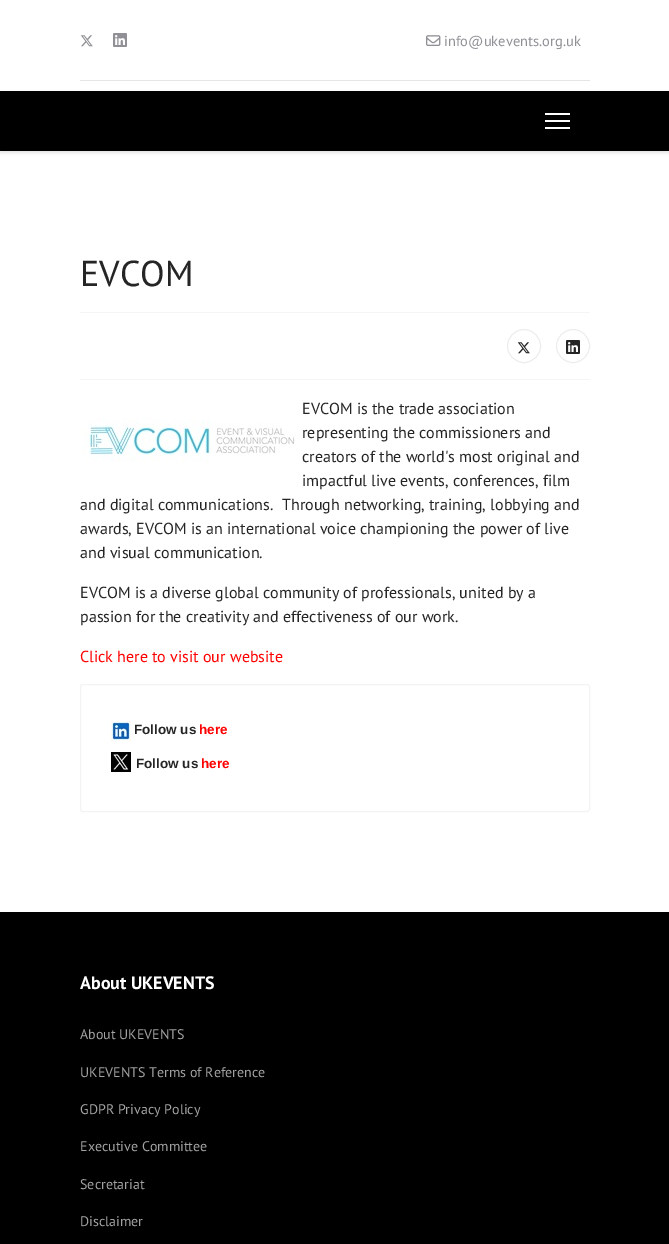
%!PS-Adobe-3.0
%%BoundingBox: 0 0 669 1244
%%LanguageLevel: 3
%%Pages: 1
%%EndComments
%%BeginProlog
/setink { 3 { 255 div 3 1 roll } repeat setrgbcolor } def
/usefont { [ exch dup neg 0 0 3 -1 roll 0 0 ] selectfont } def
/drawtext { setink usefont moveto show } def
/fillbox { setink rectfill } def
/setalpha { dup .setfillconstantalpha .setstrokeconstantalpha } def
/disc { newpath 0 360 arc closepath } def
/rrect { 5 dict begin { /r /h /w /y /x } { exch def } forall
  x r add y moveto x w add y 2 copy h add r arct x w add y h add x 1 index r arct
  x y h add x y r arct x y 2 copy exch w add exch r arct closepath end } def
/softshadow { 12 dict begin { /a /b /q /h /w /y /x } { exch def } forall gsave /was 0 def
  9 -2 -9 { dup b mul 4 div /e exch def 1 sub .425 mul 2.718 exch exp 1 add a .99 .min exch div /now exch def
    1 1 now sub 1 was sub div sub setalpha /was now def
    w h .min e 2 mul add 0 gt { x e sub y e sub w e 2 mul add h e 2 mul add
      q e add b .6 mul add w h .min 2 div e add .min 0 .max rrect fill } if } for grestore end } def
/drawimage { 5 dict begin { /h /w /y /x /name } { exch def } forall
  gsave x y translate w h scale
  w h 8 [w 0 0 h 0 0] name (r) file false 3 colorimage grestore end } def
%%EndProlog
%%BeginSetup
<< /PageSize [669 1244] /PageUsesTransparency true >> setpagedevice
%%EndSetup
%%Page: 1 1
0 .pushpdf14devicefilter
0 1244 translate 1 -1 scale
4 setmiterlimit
0 0 669 1244 255 255 255 fillbox
80 80 510 1 229 229 229 fillbox
(assets/img1.rgb) 80 35 13 12 drawimage
(assets/img2.rgb) 113 33 14 14 drawimage
(assets/img3.rgb) 426 35 15 11 drawimage
(info@ukevents.org.uk) 444 46 /PTSans-Regular 14.5 144 145 150 drawtext
0 0 0 setink
0 93 669 60 0 1.5 0.1 softshadow
0 91 669 60 0 0 0 fillbox
545 113 25 2 255 255 255 fillbox
545 120 25 2 255 255 255 fillbox
545 127 25 2 255 255 255 fillbox
(EVCOM) 80 286 /PTSans-Regular 36 37 37 37 drawtext
80 312 510 1 245 245 245 fillbox
80 379 510 1 245 245 245 fillbox
237 237 237 setink
524 346 16.5 disc stroke
(assets/img4.rgb) 517 342 13 12 drawimage
573 346 16.5 disc stroke
(assets/img5.rgb) 566 340 14 14 drawimage
(EVCOM is the trade association) 302 414 /PTSans-Regular 16 37 37 37 drawtext
(representing the commissioners and) 302 438 /PTSans-Regular 16 37 37 37 drawtext
(creators of the world's most original and) 302 462 /PTSans-Regular 16 37 37 37 drawtext
(impactful live events, conferences, film) 302 486 /PTSans-Regular 16 37 37 37 drawtext
(and digital communications.  Through networking, training, lobbying and) 80 510 /PTSans-Regular 16 37 37 37 drawtext
(awards, EVCOM is an international voice championing the power of live) 80 534 /PTSans-Regular 16 37 37 37 drawtext
(and visual communication.) 80 558 /PTSans-Regular 16 37 37 37 drawtext
(assets/img6.rgb) 82 418 213 44 drawimage
(EVCOM is a diverse global community of professionals, united by a) 80 598 /PTSans-Regular 16 37 37 37 drawtext
(passion for the creativity and effectiveness of our work.) 80 622 /PTSans-Regular 16 37 37 37 drawtext
(Click here to visit our website) 80 662 /PTSans-Regular 16 255 0 0 drawtext
243 243 243 setink
80.5 684.5 509 127 2.5 rrect stroke
(assets/img7.rgb) 111 721 20 20 drawimage
(Follow us) 134 734 /LiberationSans-Bold 13.5 37 37 37 drawtext
(here) 199 734 /LiberationSans-Bold 13.5 255 0 0 drawtext
(assets/img8.rgb) 111 752 20 20 drawimage
(Follow us) 136 768 /LiberationSans-Bold 13.5 37 37 37 drawtext
(here) 201 768 /LiberationSans-Bold 13.5 255 0 0 drawtext
0 912 669 332 0 0 0 fillbox
(About UKEVENTS) 80 989 /PTSans-Bold 18 255 255 255 drawtext
(About UKEVENTS) 80 1039 /PTSans-Regular 14 162 162 162 drawtext
(UKEVENTS Terms of Reference) 80 1077 /PTSans-Regular 14 162 162 162 drawtext
(GDPR Privacy Policy) 80 1114 /PTSans-Regular 14 162 162 162 drawtext
(Executive Committee) 80 1151 /PTSans-Regular 14 162 162 162 drawtext
(Secretariat) 80 1189 /PTSans-Regular 14 162 162 162 drawtext
(Disclaimer) 80 1226 /PTSans-Regular 14 162 162 162 drawtext
.poppdf14devicefilter showpage
%%EOF
